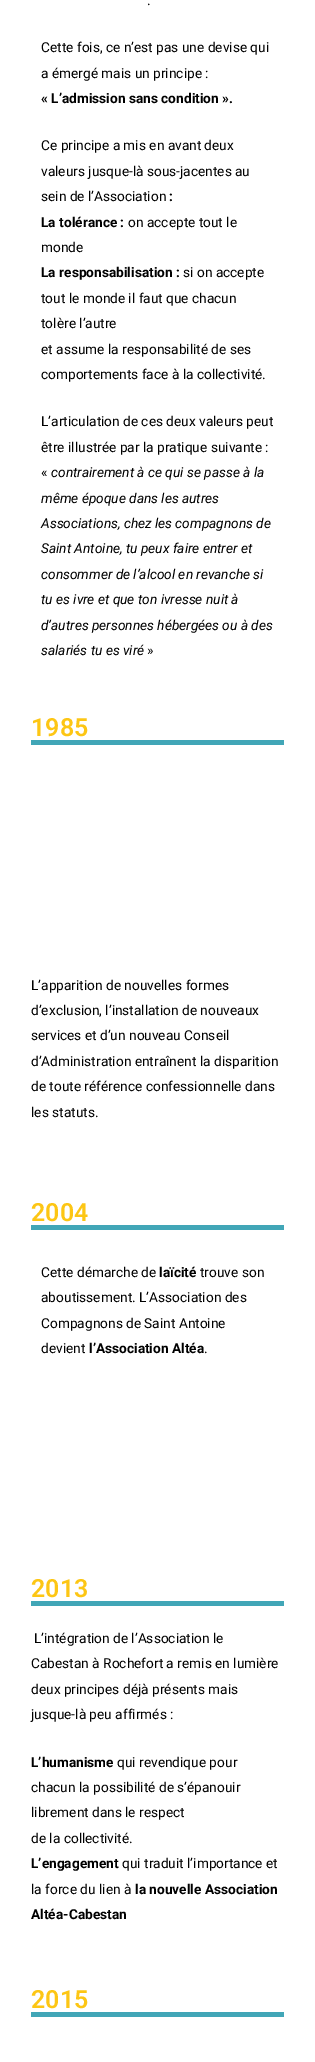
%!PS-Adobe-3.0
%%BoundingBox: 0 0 315 2062
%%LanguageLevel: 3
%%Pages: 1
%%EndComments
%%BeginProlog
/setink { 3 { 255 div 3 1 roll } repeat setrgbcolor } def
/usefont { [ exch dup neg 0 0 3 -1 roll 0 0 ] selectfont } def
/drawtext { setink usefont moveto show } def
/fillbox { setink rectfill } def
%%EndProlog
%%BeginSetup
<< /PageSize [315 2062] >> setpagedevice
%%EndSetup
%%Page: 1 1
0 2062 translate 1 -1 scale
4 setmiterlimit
0 0 315 2062 255 255 255 fillbox
(.) 147 5 /Roboto-Regular 13.7 0 0 0 drawtext
(Cette fois, ce n’est pas une devise qui) 41 52 /Roboto-Regular 13.7 0 0 0 drawtext
(a émergé mais un principe :) 41 78 /Roboto-Regular 13.7 0 0 0 drawtext
(« L’admission sans condition ».) 41 103 /Roboto-Bold 13.7 0 0 0 drawtext
(Ce principe a mis en avant deux) 41 150 /Roboto-Regular 13.7 0 0 0 drawtext
(valeurs jusque-là sous-jacentes au) 41 176 /Roboto-Regular 13.7 0 0 0 drawtext
(sein de l’Association) 41 201 /Roboto-Regular 13.7 0 0 0 drawtext
(:) 169 201 /Roboto-Bold 13.7 0 0 0 drawtext
(La tolérance :) 41 227 /Roboto-Bold 13.7 0 0 0 drawtext
(on accepte tout le) 128 227 /Roboto-Regular 13.7 0 0 0 drawtext
(monde) 41 252 /Roboto-Regular 13.7 0 0 0 drawtext
(La responsabilisation :) 41 277 /Roboto-Bold 13.7 0 0 0 drawtext
(si on accepte) 183 277 /Roboto-Regular 13.7 0 0 0 drawtext
(tout le monde il faut que chacun) 41 303 /Roboto-Regular 13.7 0 0 0 drawtext
(tolère l’autre) 41 328 /Roboto-Regular 13.7 0 0 0 drawtext
(et assume la responsabilité de ses) 41 354 /Roboto-Regular 13.7 0 0 0 drawtext
(comportements face à la collectivité.) 41 379 /Roboto-Regular 13.7 0 0 0 drawtext
(L’articulation de ces deux valeurs peut) 41 426 /Roboto-Regular 13.7 0 0 0 drawtext
(être illustrée par la pratique suivante :) 41 452 /Roboto-Regular 13.7 0 0 0 drawtext
(«) 41 477 /Roboto-Regular 13.7 0 0 0 drawtext
(contrairement à ce qui se passe à la) 51 477 /Roboto-Italic 13.7 0 0 0 drawtext
(même époque dans les autres) 41 503 /Roboto-Italic 13.7 0 0 0 drawtext
(Associations, chez les compagnons de) 41 528 /Roboto-Italic 13.7 0 0 0 drawtext
(Saint Antoine, tu peux faire entrer et) 41 553 /Roboto-Italic 13.7 0 0 0 drawtext
(consommer de l’alcool en revanche si) 41 579 /Roboto-Italic 13.7 0 0 0 drawtext
(tu es ivre et que ton ivresse nuit à) 41 604 /Roboto-Italic 13.7 0 0 0 drawtext
(d’autres personnes hébergées ou à des) 41 630 /Roboto-Italic 13.7 0 0 0 drawtext
(salariés tu es viré) 41 655 /Roboto-Italic 13.7 0 0 0 drawtext
(») 147 655 /Roboto-Regular 13.7 0 0 0 drawtext
31 740 253 5 65 166 183 fillbox
(1985) 31 736 /Roboto-SemiBold 25 253 198 20 drawtext
(L’apparition de nouvelles formes) 31 990 /Roboto-Regular 13.7 0 0 0 drawtext
(d’exclusion, l’installation de nouveaux) 31 1015 /Roboto-Regular 13.7 0 0 0 drawtext
(services et d’un nouveau Conseil) 31 1040 /Roboto-Regular 13.7 0 0 0 drawtext
(d’Administration entraînent la disparition) 31 1066 /Roboto-Regular 13.7 0 0 0 drawtext
(de toute référence confessionnelle dans) 31 1091 /Roboto-Regular 13.7 0 0 0 drawtext
(les statuts.) 31 1117 /Roboto-Regular 13.7 0 0 0 drawtext
31 1225 253 5 65 166 183 fillbox
(2004) 31 1221 /Roboto-SemiBold 25 253 198 20 drawtext
(Cette démarche de) 41 1277 /Roboto-Regular 13.7 0 0 0 drawtext
(laïcité) 159 1277 /Roboto-Bold 13.7 0 0 0 drawtext
(trouve son) 200 1277 /Roboto-Regular 13.7 0 0 0 drawtext
(aboutissement. L’Association des) 41 1302 /Roboto-Regular 13.7 0 0 0 drawtext
(Compagnons de Saint Antoine) 41 1328 /Roboto-Regular 13.7 0 0 0 drawtext
(devient) 41 1353 /Roboto-Regular 13.7 0 0 0 drawtext
(l’Association Altéa) 89 1353 /Roboto-Bold 13.7 0 0 0 drawtext
(.) 204 1353 /Roboto-Regular 13.7 0 0 0 drawtext
31 1601 253 5 65 166 183 fillbox
(2013) 31 1597 /Roboto-SemiBold 25 253 198 20 drawtext
(L’intégration de l’Association le) 34 1643 /Roboto-Regular 13.7 0 0 0 drawtext
(Cabestan à Rochefort a remis en lumière) 31 1668 /Roboto-Regular 13.7 0 0 0 drawtext
(deux principes déjà présents mais) 31 1694 /Roboto-Regular 13.7 0 0 0 drawtext
(jusque-là peu affirmés :) 31 1719 /Roboto-Regular 13.7 0 0 0 drawtext
(L’humanisme) 31 1767 /Roboto-Bold 13.7 0 0 0 drawtext
(qui revendique pour) 117 1767 /Roboto-Regular 13.7 0 0 0 drawtext
(chacun la possibilité de s’épanouir) 31 1792 /Roboto-Regular 13.7 0 0 0 drawtext
(librement dans le respect) 31 1817 /Roboto-Regular 13.7 0 0 0 drawtext
(de la collectivité.) 31 1843 /Roboto-Regular 13.7 0 0 0 drawtext
(L’engagement) 31 1868 /Roboto-Bold 13.7 0 0 0 drawtext
(qui traduit l’importance et) 122 1868 /Roboto-Regular 13.7 0 0 0 drawtext
(la force du lien à) 31 1894 /Roboto-Regular 13.7 0 0 0 drawtext
(la nouvelle Association) 135 1894 /Roboto-Bold 13.7 0 0 0 drawtext
(Altéa-Cabestan) 31 1919 /Roboto-Bold 13.7 0 0 0 drawtext
31 2012 253 5 65 166 183 fillbox
(2015) 31 2008 /Roboto-SemiBold 25 253 198 20 drawtext
showpage
%%EOF
